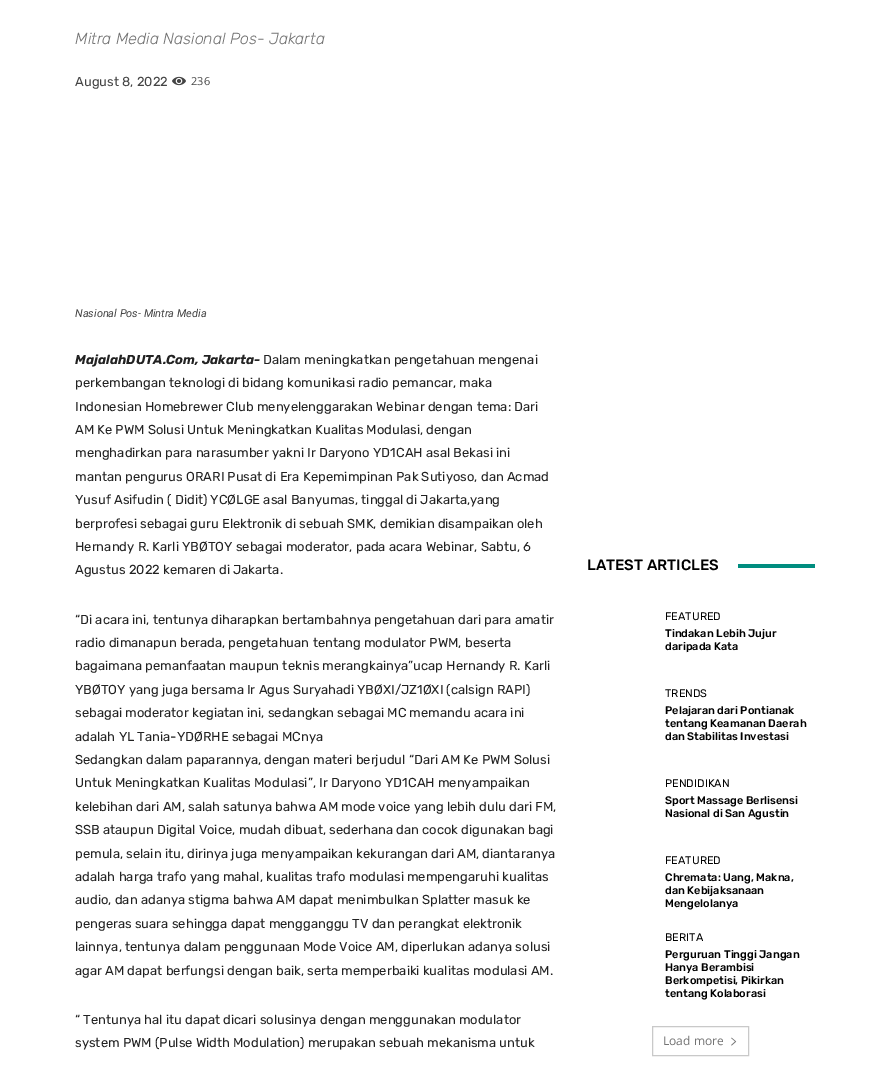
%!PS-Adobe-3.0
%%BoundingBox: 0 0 889 1065
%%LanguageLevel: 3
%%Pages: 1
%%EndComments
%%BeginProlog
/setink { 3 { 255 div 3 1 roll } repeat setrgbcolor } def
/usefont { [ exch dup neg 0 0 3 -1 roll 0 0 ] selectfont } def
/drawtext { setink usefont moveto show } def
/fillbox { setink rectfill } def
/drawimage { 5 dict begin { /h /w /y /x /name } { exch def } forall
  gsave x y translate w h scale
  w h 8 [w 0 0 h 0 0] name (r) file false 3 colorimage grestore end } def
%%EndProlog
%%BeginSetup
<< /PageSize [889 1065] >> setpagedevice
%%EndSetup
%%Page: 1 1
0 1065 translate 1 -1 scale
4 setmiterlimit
0 0 889 1065 255 255 255 fillbox
(Mitra Media Nasional Pos- Jakarta) 75 44 /Rubik-LightItalic 16 116 116 116 drawtext
(August 8, 2022) 75 86 /Rubik-Regular 13 68 68 68 drawtext
(assets/img1.rgb) 172 76 14 10 drawimage
(236) 191 85 /OpenSans-Regular 11 68 68 68 drawtext
(Nasional Pos- Mintra Media) 75 317 /Roboto-Italic 11 68 68 68 drawtext
(MajalahDUTA.Com, Jakarta-) 75 364 /Rubik-BoldItalic 13 34 34 34 drawtext
(Dalam meningkatkan pengetahuan mengenai) 263 364 /Rubik-Regular 13 34 34 34 drawtext
(perkembangan teknologi di bidang komunikasi radio pemancar, maka) 75 387 /Rubik-Regular 13 34 34 34 drawtext
(Indonesian Homebrewer Club menyelenggarakan Webinar dengan tema: Dari) 75 411 /Rubik-Regular 13 34 34 34 drawtext
(AM Ke PWM Solusi Untuk Meningkatkan Kualitas Modulasi, dengan) 75 434 /Rubik-Regular 13 34 34 34 drawtext
(menghadirkan para narasumber yakni Ir Daryono YD1CAH asal Bekasi ini) 75 457 /Rubik-Regular 13 34 34 34 drawtext
(mantan pengurus ORARI Pusat di Era Kepemimpinan Pak Sutiyoso, dan Acmad) 75 481 /Rubik-Regular 13 34 34 34 drawtext
(Yusuf Asifudin \( Didit\) YCØLGE asal Banyumas, tinggal di Jakarta,yang) 75 504 /Rubik-Regular 13 34 34 34 drawtext
(berprofesi sebagai guru Elektronik di sebuah SMK, demikian disampaikan oleh) 75 528 /Rubik-Regular 13 34 34 34 drawtext
(Hernandy R. Karli YBØTOY sebagai moderator, pada acara Webinar, Sabtu, 6) 75 551 /Rubik-Regular 13 34 34 34 drawtext
(Agustus 2022 kemaren di Jakarta.) 75 574 /Rubik-Regular 13 34 34 34 drawtext
(“Di acara ini, tentunya diharapkan bertambahnya pengetahuan dari para amatir) 75 624 /Rubik-Regular 13 34 34 34 drawtext
(radio dimanapun berada, pengetahuan tentang modulator PWM, beserta) 75 647 /Rubik-Regular 13 34 34 34 drawtext
(bagaimana pemanfaatan maupun teknis merangkainya”ucap Hernandy R. Karli) 75 670 /Rubik-Regular 13 34 34 34 drawtext
(YBØTOY yang juga bersama Ir Agus Suryahadi YBØXI/JZ1ØXI \(calsign RAPI\)) 75 694 /Rubik-Regular 13 34 34 34 drawtext
(sebagai moderator kegiatan ini, sedangkan sebagai MC memandu acara ini) 75 717 /Rubik-Regular 13 34 34 34 drawtext
(adalah YL Tania-YDØRHE sebagai MCnya) 75 741 /Rubik-Regular 13 34 34 34 drawtext
(Sedangkan dalam paparannya, dengan materi berjudul “Dari AM Ke PWM Solusi) 75 764 /Rubik-Regular 13 34 34 34 drawtext
(Untuk Meningkatkan Kualitas Modulasi”, Ir Daryono YD1CAH menyampaikan) 75 787 /Rubik-Regular 13 34 34 34 drawtext
(kelebihan dari AM, salah satunya bahwa AM mode voice yang lebih dulu dari FM,) 75 811 /Rubik-Regular 13 34 34 34 drawtext
(SSB ataupun Digital Voice, mudah dibuat, sederhana dan cocok digunakan bagi) 75 834 /Rubik-Regular 13 34 34 34 drawtext
(pemula, selain itu, dirinya juga menyampaikan kekurangan dari AM, diantaranya) 75 858 /Rubik-Regular 13 34 34 34 drawtext
(adalah harga trafo yang mahal, kualitas trafo modulasi mempengaruhi kualitas) 75 881 /Rubik-Regular 13 34 34 34 drawtext
(audio, dan adanya stigma bahwa AM dapat menimbulkan Splatter masuk ke) 75 904 /Rubik-Regular 13 34 34 34 drawtext
(pengeras suara sehingga dapat mengganggu TV dan perangkat elektronik) 75 928 /Rubik-Regular 13 34 34 34 drawtext
(lainnya, tentunya dalam penggunaan Mode Voice AM, diperlukan adanya solusi) 75 951 /Rubik-Regular 13 34 34 34 drawtext
(agar AM dapat berfungsi dengan baik, serta memperbaiki kualitas modulasi AM.) 75 975 /Rubik-Regular 13 34 34 34 drawtext
(“ Tentunya hal itu dapat dicari solusinya dengan menggunakan modulator) 75 1024 /Rubik-Regular 13 34 34 34 drawtext
(system PWM \(Pulse Width Modulation\) merupakan sebuah mekanisma untuk) 75 1047 /Rubik-Regular 13 34 34 34 drawtext
(LATEST ARTICLES) 587 570 /Rubik-Medium 15 0 0 0 drawtext
738 564 77 4 0 141 127 fillbox
(FEATURED) 665 620 /Rubik-Regular 11 0 0 0 drawtext
(Tindakan Lebih Jujur) 665 637 /Rubik-Medium 11 0 0 0 drawtext
(daripada Kata) 665 650 /Rubik-Medium 11 0 0 0 drawtext
(TRENDS) 665 697 /Rubik-Regular 11 0 0 0 drawtext
(Pelajaran dari Pontianak) 665 714 /Rubik-Medium 11 0 0 0 drawtext
(tentang Keamanan Daerah) 665 727 /Rubik-Medium 11 0 0 0 drawtext
(dan Stabilitas Investasi) 665 740 /Rubik-Medium 11 0 0 0 drawtext
(PENDIDIKAN) 665 787 /Rubik-Regular 11 0 0 0 drawtext
(Sport Massage Berlisensi) 665 804 /Rubik-Medium 11 0 0 0 drawtext
(Nasional di San Agustin) 665 817 /Rubik-Medium 11 0 0 0 drawtext
(FEATURED) 665 864 /Rubik-Regular 11 0 0 0 drawtext
(Chremata: Uang, Makna,) 665 881 /Rubik-Medium 11 0 0 0 drawtext
(dan Kebijaksanaan) 665 894 /Rubik-Medium 11 0 0 0 drawtext
(Mengelolanya) 665 907 /Rubik-Medium 11 0 0 0 drawtext
(BERITA) 665 941 /Rubik-Regular 11 0 0 0 drawtext
(Perguruan Tinggi Jangan) 665 958 /Rubik-Medium 11 0 0 0 drawtext
(Hanya Berambisi) 665 971 /Rubik-Medium 11 0 0 0 drawtext
(Berkompetisi, Pikirkan) 665 984 /Rubik-Medium 11 0 0 0 drawtext
(tentang Kolaborasi) 665 997 /Rubik-Medium 11 0 0 0 drawtext
201 201 201 setink
652.5 1026.5 96 29 rectstroke
(Load more) 663 1045 /OpenSans-Regular 12 116 116 116 drawtext
(assets/img2.rgb) 731 1037 6 9 drawimage
showpage
%%EOF
